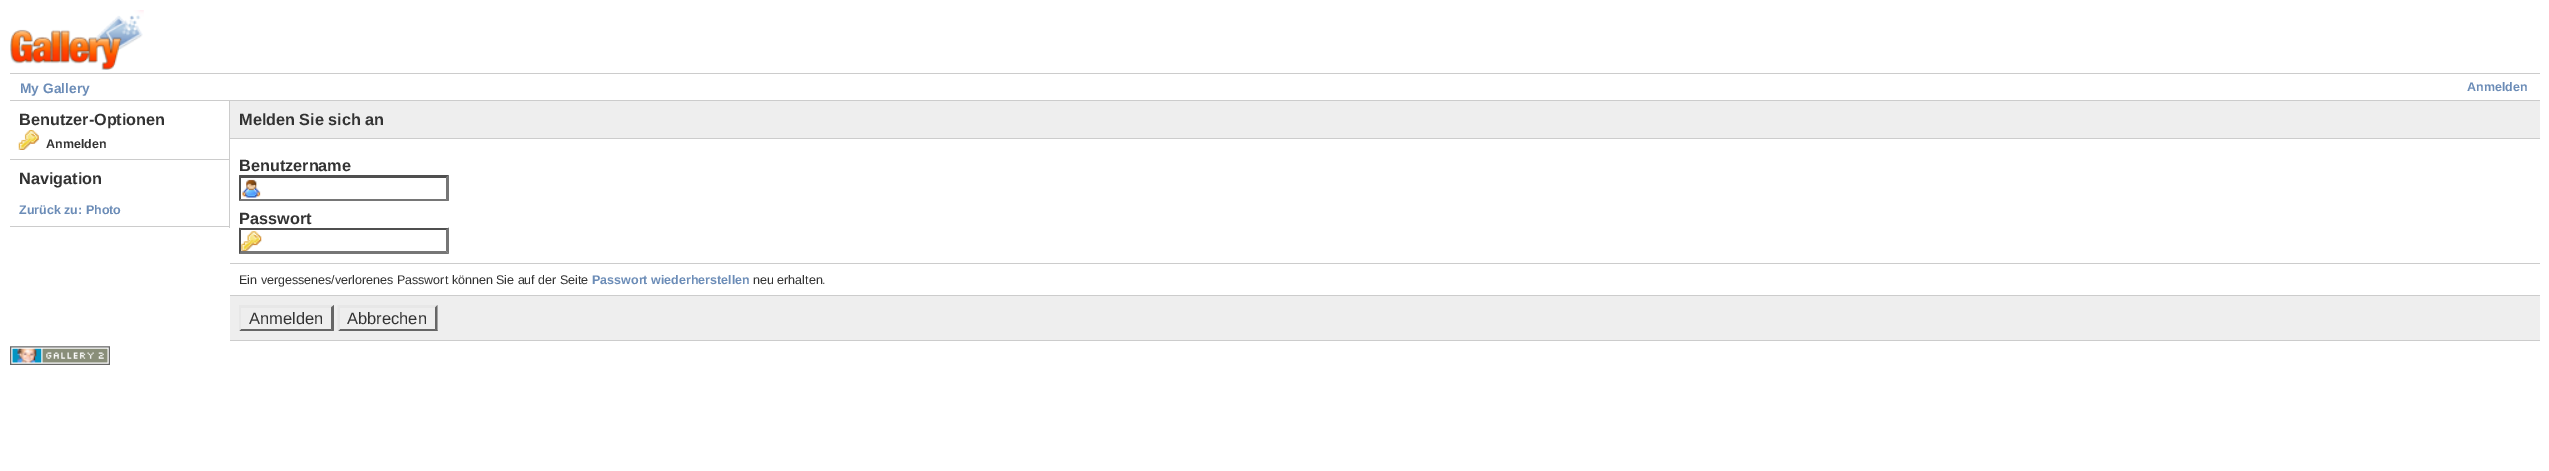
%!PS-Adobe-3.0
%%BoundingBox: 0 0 2549 471
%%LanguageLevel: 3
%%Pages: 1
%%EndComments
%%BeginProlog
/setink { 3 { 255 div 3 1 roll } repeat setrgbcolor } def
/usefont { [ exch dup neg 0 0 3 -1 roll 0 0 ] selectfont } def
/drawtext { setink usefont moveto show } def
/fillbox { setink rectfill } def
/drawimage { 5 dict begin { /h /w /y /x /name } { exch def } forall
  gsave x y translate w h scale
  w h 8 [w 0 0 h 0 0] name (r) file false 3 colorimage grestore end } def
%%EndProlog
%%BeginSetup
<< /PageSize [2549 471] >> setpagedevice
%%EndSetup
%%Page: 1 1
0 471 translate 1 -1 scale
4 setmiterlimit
0 0 2549 471 255 255 255 fillbox
(assets/img1.rgb) 10 10 134 60 drawimage
10 73 2530 1 204 204 204 fillbox
10 100 2530 1 204 204 204 fillbox
(My Gallery) 20 93 /LiberationSans-Bold 13.75 107 140 183 drawtext
(Anmelden) 2467 91 /LiberationSans-Bold 12.5 107 140 183 drawtext
229 101 1 127 204 204 204 fillbox
10 159 219 1 204 204 204 fillbox
(Benutzer-Optionen) 19 125 /LiberationSans-Bold 16.25 51 51 51 drawtext
(assets/img2.rgb) 18 130 21 20 drawimage
(Anmelden) 46 148 /LiberationSans-Bold 12.5 51 51 51 drawtext
10 226 219 1 204 204 204 fillbox
(Navigation) 19 184 /LiberationSans-Bold 16.25 51 51 51 drawtext
(Zurück zu: Photo) 19 214 /LiberationSans-Bold 12.5 107 140 183 drawtext
230 101 2310 37 238 238 238 fillbox
230 138 2310 1 204 204 204 fillbox
(Melden Sie sich an) 239 125 /LiberationSans-Bold 16.25 51 51 51 drawtext
230 263 2310 1 204 204 204 fillbox
(Benutzername) 239 171 /LiberationSans-Bold 16.25 51 51 51 drawtext
(assets/img3.rgb) 242 179 19 19 drawimage
79 79 79 setink
239 175 moveto 449 175 lineto 446 178 lineto 241 178 lineto closepath fill
118 118 118 setink
449 175 moveto 449 201 lineto 446 199 lineto 446 177.5 lineto closepath fill
449 201 moveto 239 201 lineto 241 199 lineto 446 199 lineto closepath fill
79 79 79 setink
239 201 moveto 239 175 lineto 241 177.5 lineto 241 199 lineto closepath fill
(Passwort) 239 224 /LiberationSans-Bold 16.25 51 51 51 drawtext
(assets/img4.rgb) 241 231 21 20 drawimage
79 79 79 setink
239 228 moveto 449 228 lineto 446 230 lineto 241 230 lineto closepath fill
118 118 118 setink
449 227.5 moveto 449 254 lineto 446 251 lineto 446 230 lineto closepath fill
449 254 moveto 239 254 lineto 241 251 lineto 446 251 lineto closepath fill
79 79 79 setink
239 254 moveto 239 227.5 lineto 241 230 lineto 241 251 lineto closepath fill
230 295 2310 1 204 204 204 fillbox
(Ein vergessenes/verlorenes Passwort können Sie auf der Seite) 239 284 /LiberationSans-Regular 12.5 51 51 51 drawtext
(Passwort wiederherstellen) 592 284 /LiberationSans-Bold 12.5 107 140 183 drawtext
(neu erhalten.) 753 284 /LiberationSans-Regular 12.5 51 51 51 drawtext
230 296 2310 44 238 238 238 fillbox
230 340 2310 1 204 204 204 fillbox
231 231 231 setink
239 305 moveto 334 305 lineto 331 308 lineto 241 308 lineto closepath fill
102 102 102 setink
334 305 moveto 334 331 lineto 331 329 lineto 331 307.5 lineto closepath fill
334 331 moveto 239 331 lineto 241 329 lineto 331 329 lineto closepath fill
231 231 231 setink
239 331 moveto 239 305 lineto 241 307.5 lineto 241 329 lineto closepath fill
(Anmelden) 249 324 /LiberationSans-Regular 16.5 51 51 51 drawtext
231 231 231 setink
338 305 moveto 438 305 lineto 435 308 lineto 340 308 lineto closepath fill
102 102 102 setink
437.5 305 moveto 437.5 331 lineto 435 329 lineto 435 307.5 lineto closepath fill
438 331 moveto 338 331 lineto 340 329 lineto 435 329 lineto closepath fill
231 231 231 setink
337.5 331 moveto 337.5 305 lineto 340 307.5 lineto 340 329 lineto closepath fill
(Abbrechen) 347 324 /LiberationSans-Regular 16.5 51 51 51 drawtext
(assets/img5.rgb) 10 346 100 19 drawimage
showpage
%%EOF
